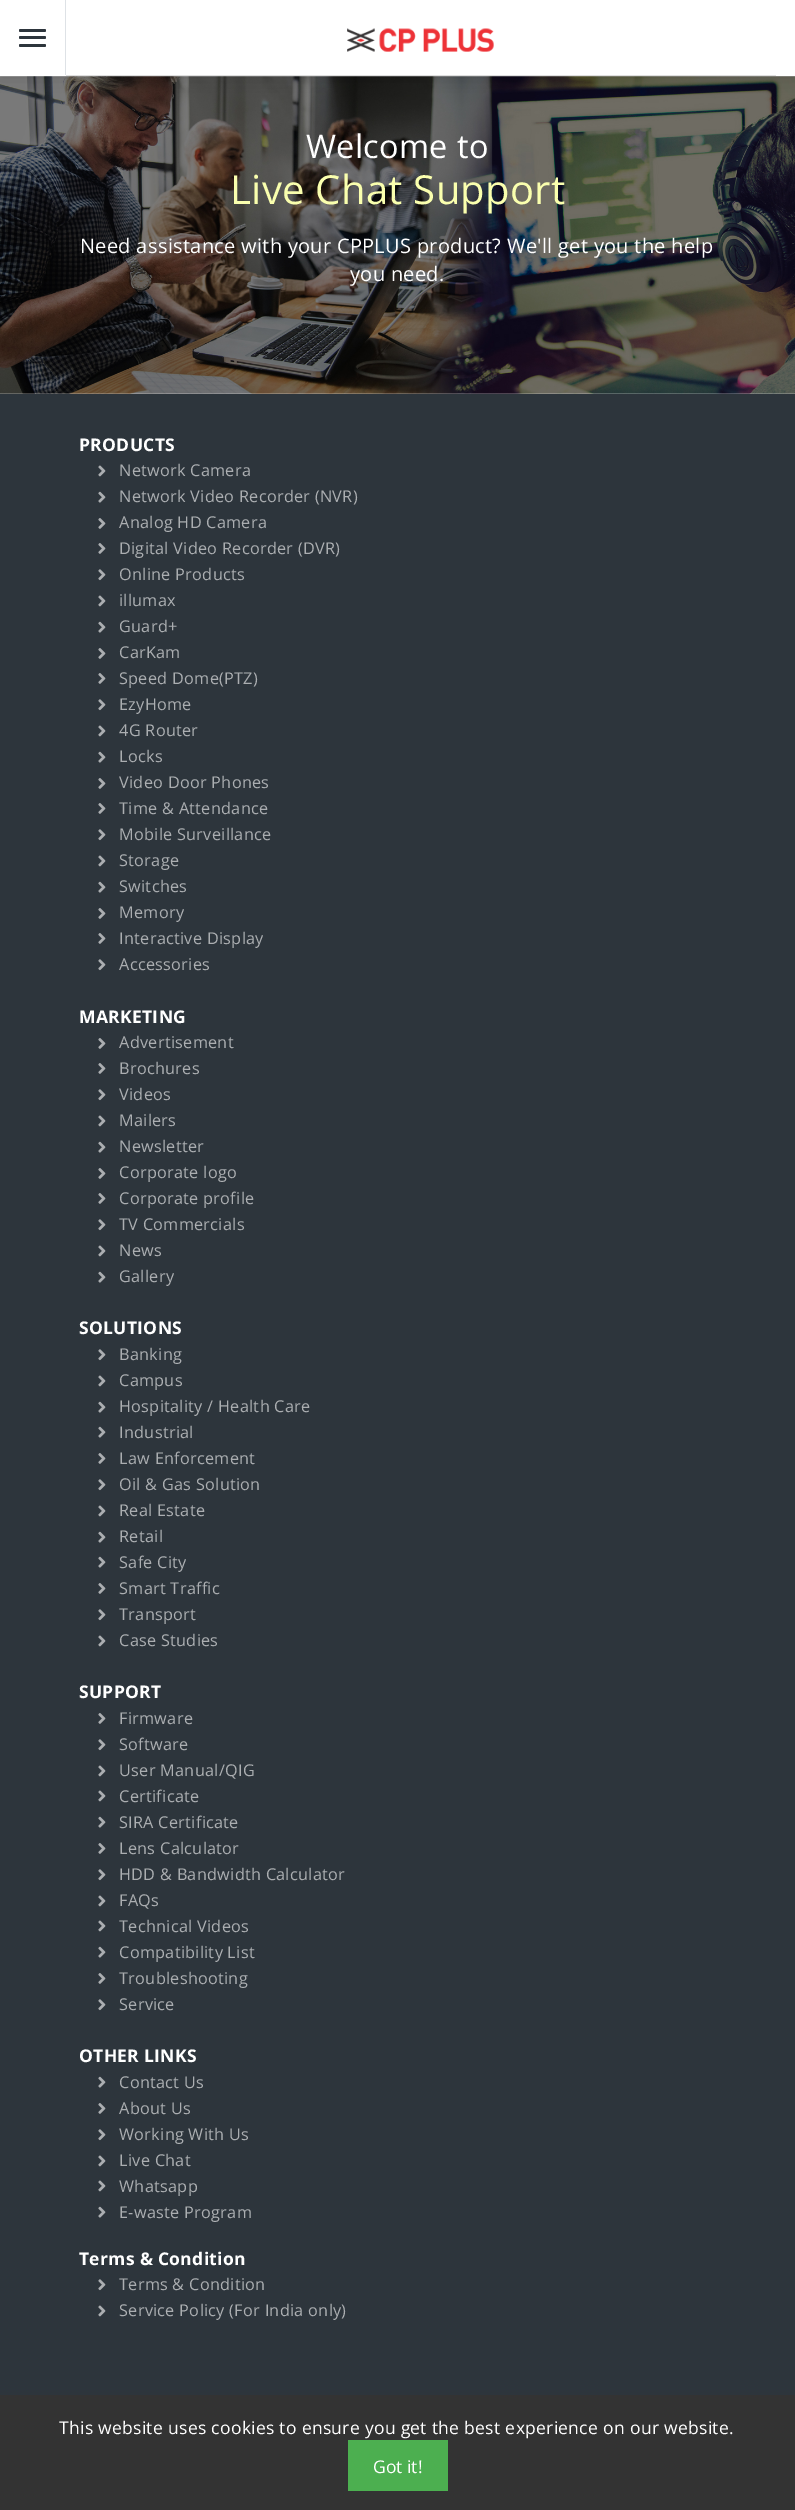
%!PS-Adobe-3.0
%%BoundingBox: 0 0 795 2510
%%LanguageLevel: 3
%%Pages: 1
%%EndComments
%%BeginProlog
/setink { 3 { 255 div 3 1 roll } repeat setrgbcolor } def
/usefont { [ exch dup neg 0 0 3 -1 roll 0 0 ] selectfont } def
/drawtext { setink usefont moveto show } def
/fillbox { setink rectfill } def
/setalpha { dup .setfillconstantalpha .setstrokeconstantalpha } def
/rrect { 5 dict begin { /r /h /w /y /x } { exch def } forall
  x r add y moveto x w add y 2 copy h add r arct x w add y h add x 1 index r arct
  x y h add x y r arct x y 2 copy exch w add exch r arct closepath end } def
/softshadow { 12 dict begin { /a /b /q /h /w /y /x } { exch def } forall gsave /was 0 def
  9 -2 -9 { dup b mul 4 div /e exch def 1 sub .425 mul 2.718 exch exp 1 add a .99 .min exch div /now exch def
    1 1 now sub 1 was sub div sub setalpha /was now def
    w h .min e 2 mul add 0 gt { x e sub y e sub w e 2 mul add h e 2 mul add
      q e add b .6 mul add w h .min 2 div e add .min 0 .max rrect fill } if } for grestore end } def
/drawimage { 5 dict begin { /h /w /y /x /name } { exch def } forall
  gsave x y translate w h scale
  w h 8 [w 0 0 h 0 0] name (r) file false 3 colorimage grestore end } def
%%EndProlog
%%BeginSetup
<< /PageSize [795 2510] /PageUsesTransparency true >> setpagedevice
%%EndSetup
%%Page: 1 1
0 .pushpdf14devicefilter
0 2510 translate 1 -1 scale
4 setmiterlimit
0 0 795 2510 255 255 255 fillbox
(assets/img2.rgb) 0 76 795 318 drawimage
0 0 0 setink
0 0 795 76 0 10 0.15 softshadow
0 0 795 76 255 255 255 fillbox
65 0 1 75 222 226 230 fillbox
45 53 60 setink
19 29 27 3 1.5 rrect fill
19 36 27 3 1.5 rrect fill
19 44 27 3 1.5 rrect fill
66 75 710 1 223 223 223 fillbox
(assets/img1.rgb) 347 28 147 24 drawimage
/OpenSans-Regular 32.5 usefont
255 255 255 setink
306 158 moveto 0.3 0 (Welcome to) ashow
/OpenSans-Regular 40 usefont
250 255 174 setink
230 204 moveto 0.3 0 (Live Chat Support) ashow
/OpenSans-Regular 20 usefont
255 255 255 setink
80 253 moveto 0.3 0 (Need assistance with your CPPLUS product? We'll get you the help) ashow
350 281 moveto 0.3 0 (you need.) ashow
0 394 795 2001 45 53 60 fillbox
/OpenSans-Bold 17.5 usefont
255 255 255 setink
79 451 moveto 0.3 0 (PRODUCTS) ashow
(assets/img3.rgb) 98 465 8 12 drawimage
/OpenSans-Regular 16.25 usefont
171 174 177 setink
119 476 moveto 0.3 0 (Network Camera) ashow
(assets/img4.rgb) 98 491 8 12 drawimage
119 502 moveto 0.3 0 (Network Video Recorder \(NVR\)) ashow
(assets/img5.rgb) 98 518 8 11 drawimage
119 528 moveto 0.3 0 (Analog HD Camera) ashow
(assets/img5.rgb) 98 543 8 11 drawimage
119 554 moveto 0.3 0 (Digital Video Recorder \(DVR\)) ashow
(assets/img6.rgb) 98 569 8 12 drawimage
119 580 moveto 0.3 0 (Online Products) ashow
(assets/img3.rgb) 98 595 8 12 drawimage
119 606 moveto 0.3 0 (illumax) ashow
(assets/img4.rgb) 98 621 8 12 drawimage
119 632 moveto 0.3 0 (Guard+) ashow
(assets/img5.rgb) 98 648 8 11 drawimage
119 658 moveto 0.3 0 (CarKam) ashow
(assets/img5.rgb) 98 673 8 11 drawimage
119 684 moveto 0.3 0 (Speed Dome\(PTZ\)) ashow
(assets/img6.rgb) 98 699 8 12 drawimage
119 710 moveto 0.3 0 (EzyHome) ashow
(assets/img3.rgb) 98 725 8 12 drawimage
119 736 moveto 0.3 0 (4G Router) ashow
(assets/img4.rgb) 98 751 8 12 drawimage
119 762 moveto 0.3 0 (Locks) ashow
(assets/img5.rgb) 98 778 8 11 drawimage
119 788 moveto 0.3 0 (Video Door Phones) ashow
(assets/img5.rgb) 98 803 8 11 drawimage
119 814 moveto 0.3 0 (Time & Attendance) ashow
(assets/img6.rgb) 98 829 8 12 drawimage
119 840 moveto 0.3 0 (Mobile Surveillance) ashow
(assets/img3.rgb) 98 855 8 12 drawimage
119 866 moveto 0.3 0 (Storage) ashow
(assets/img4.rgb) 98 881 8 12 drawimage
119 892 moveto 0.3 0 (Switches) ashow
(assets/img5.rgb) 98 908 8 11 drawimage
119 918 moveto 0.3 0 (Memory) ashow
(assets/img5.rgb) 98 933 8 11 drawimage
119 944 moveto 0.3 0 (Interactive Display) ashow
(assets/img6.rgb) 98 959 8 12 drawimage
119 970 moveto 0.3 0 (Accessories) ashow
/OpenSans-Bold 17.5 usefont
255 255 255 setink
79 1023 moveto 0.3 0 (MARKETING) ashow
(assets/img5.rgb) 98 1038 8 11 drawimage
/OpenSans-Regular 16.25 usefont
171 174 177 setink
119 1048 moveto 0.3 0 (Advertisement) ashow
(assets/img5.rgb) 98 1063 8 11 drawimage
119 1074 moveto 0.3 0 (Brochures) ashow
(assets/img6.rgb) 98 1089 8 12 drawimage
119 1100 moveto 0.3 0 (Videos) ashow
(assets/img3.rgb) 98 1115 8 12 drawimage
119 1126 moveto 0.3 0 (Mailers) ashow
(assets/img4.rgb) 98 1141 8 12 drawimage
119 1152 moveto 0.3 0 (Newsletter) ashow
(assets/img5.rgb) 98 1168 8 11 drawimage
119 1178 moveto 0.3 0 (Corporate logo) ashow
(assets/img5.rgb) 98 1193 8 11 drawimage
119 1204 moveto 0.3 0 (Corporate profile) ashow
(assets/img6.rgb) 98 1219 8 12 drawimage
119 1230 moveto 0.3 0 (TV Commercials) ashow
(assets/img3.rgb) 98 1245 8 12 drawimage
119 1256 moveto 0.3 0 (News) ashow
(assets/img4.rgb) 98 1271 8 12 drawimage
119 1282 moveto 0.3 0 (Gallery) ashow
/OpenSans-Bold 17.5 usefont
255 255 255 setink
79 1334 moveto 0.3 0 (SOLUTIONS) ashow
(assets/img6.rgb) 98 1349 8 12 drawimage
/OpenSans-Regular 16.25 usefont
171 174 177 setink
119 1360 moveto 0.3 0 (Banking) ashow
(assets/img3.rgb) 98 1375 8 12 drawimage
119 1386 moveto 0.3 0 (Campus) ashow
(assets/img4.rgb) 98 1401 8 12 drawimage
119 1412 moveto 0.3 0 (Hospitality / Health Care) ashow
(assets/img4.rgb) 98 1426 8 12 drawimage
119 1438 moveto 0.3 0 (Industrial) ashow
(assets/img5.rgb) 98 1453 8 11 drawimage
119 1464 moveto 0.3 0 (Law Enforcement) ashow
(assets/img6.rgb) 98 1479 8 12 drawimage
119 1490 moveto 0.3 0 (Oil & Gas Solution) ashow
(assets/img3.rgb) 98 1505 8 12 drawimage
119 1516 moveto 0.3 0 (Real Estate) ashow
(assets/img4.rgb) 98 1531 8 12 drawimage
119 1542 moveto 0.3 0 (Retail) ashow
(assets/img4.rgb) 98 1556 8 12 drawimage
119 1568 moveto 0.3 0 (Safe City) ashow
(assets/img5.rgb) 98 1583 8 11 drawimage
119 1594 moveto 0.3 0 (Smart Traffic) ashow
(assets/img6.rgb) 98 1609 8 12 drawimage
119 1620 moveto 0.3 0 (Transport) ashow
(assets/img3.rgb) 98 1635 8 12 drawimage
119 1646 moveto 0.3 0 (Case Studies) ashow
/OpenSans-Bold 17.5 usefont
255 255 255 setink
79 1698 moveto 0.3 0 (SUPPORT) ashow
(assets/img5.rgb) 98 1713 8 11 drawimage
/OpenSans-Regular 16.25 usefont
171 174 177 setink
119 1724 moveto 0.3 0 (Firmware) ashow
(assets/img6.rgb) 98 1739 8 12 drawimage
119 1750 moveto 0.3 0 (Software) ashow
(assets/img3.rgb) 98 1765 8 12 drawimage
119 1776 moveto 0.3 0 (User Manual/QIG) ashow
(assets/img3.rgb) 98 1790 8 12 drawimage
119 1802 moveto 0.3 0 (Certificate) ashow
(assets/img4.rgb) 98 1816 8 12 drawimage
119 1828 moveto 0.3 0 (SIRA Certificate) ashow
(assets/img5.rgb) 98 1843 8 11 drawimage
119 1854 moveto 0.3 0 (Lens Calculator) ashow
(assets/img6.rgb) 98 1869 8 12 drawimage
119 1880 moveto 0.3 0 (HDD & Bandwidth Calculator) ashow
(assets/img3.rgb) 98 1895 8 12 drawimage
119 1906 moveto 0.3 0 (FAQs) ashow
(assets/img3.rgb) 98 1920 8 12 drawimage
119 1932 moveto 0.3 0 (Technical Videos) ashow
(assets/img4.rgb) 98 1946 8 12 drawimage
119 1958 moveto 0.3 0 (Compatibility List) ashow
(assets/img5.rgb) 98 1973 8 11 drawimage
119 1984 moveto 0.3 0 (Troubleshooting) ashow
(assets/img6.rgb) 98 1999 8 12 drawimage
119 2010 moveto 0.3 0 (Service) ashow
/OpenSans-Bold 17.5 usefont
255 255 255 setink
79 2062 moveto 0.3 0 (OTHER LINKS) ashow
(assets/img4.rgb) 98 2076 8 12 drawimage
/OpenSans-Regular 16.25 usefont
171 174 177 setink
119 2088 moveto 0.3 0 (Contact Us) ashow
(assets/img5.rgb) 98 2103 8 11 drawimage
119 2114 moveto 0.3 0 (About Us) ashow
(assets/img6.rgb) 98 2129 8 12 drawimage
119 2140 moveto 0.3 0 (Working With Us) ashow
(assets/img3.rgb) 98 2155 8 12 drawimage
119 2166 moveto 0.3 0 (Live Chat) ashow
(assets/img3.rgb) 98 2180 8 12 drawimage
119 2192 moveto 0.3 0 (Whatsapp) ashow
(assets/img4.rgb) 98 2206 8 12 drawimage
119 2218 moveto 0.3 0 (E-waste Program) ashow
/OpenSans-Bold 17.5 usefont
255 255 255 setink
79 2265 moveto 0.3 0 (Terms & Condition) ashow
(assets/img6.rgb) 98 2279 8 12 drawimage
/OpenSans-Regular 16.25 usefont
171 174 177 setink
119 2290 moveto 0.3 0 (Terms & Condition) ashow
(assets/img3.rgb) 98 2305 8 12 drawimage
119 2316 moveto 0.3 0 (Service Policy \(For India only\)) ashow
0 2395 795 115 51 51 51 fillbox
/OpenSans-Regular 17.5 usefont
255 255 255 setink
59 2434 moveto 0.3 0 (This website uses cookies to ensure you get the best experience on our website.) ashow
348 2440 100 51 76 175 80 fillbox
(Got it!) 373 2473 /OpenSans-Regular 17.5 255 255 255 drawtext
.poppdf14devicefilter showpage
%%EOF
